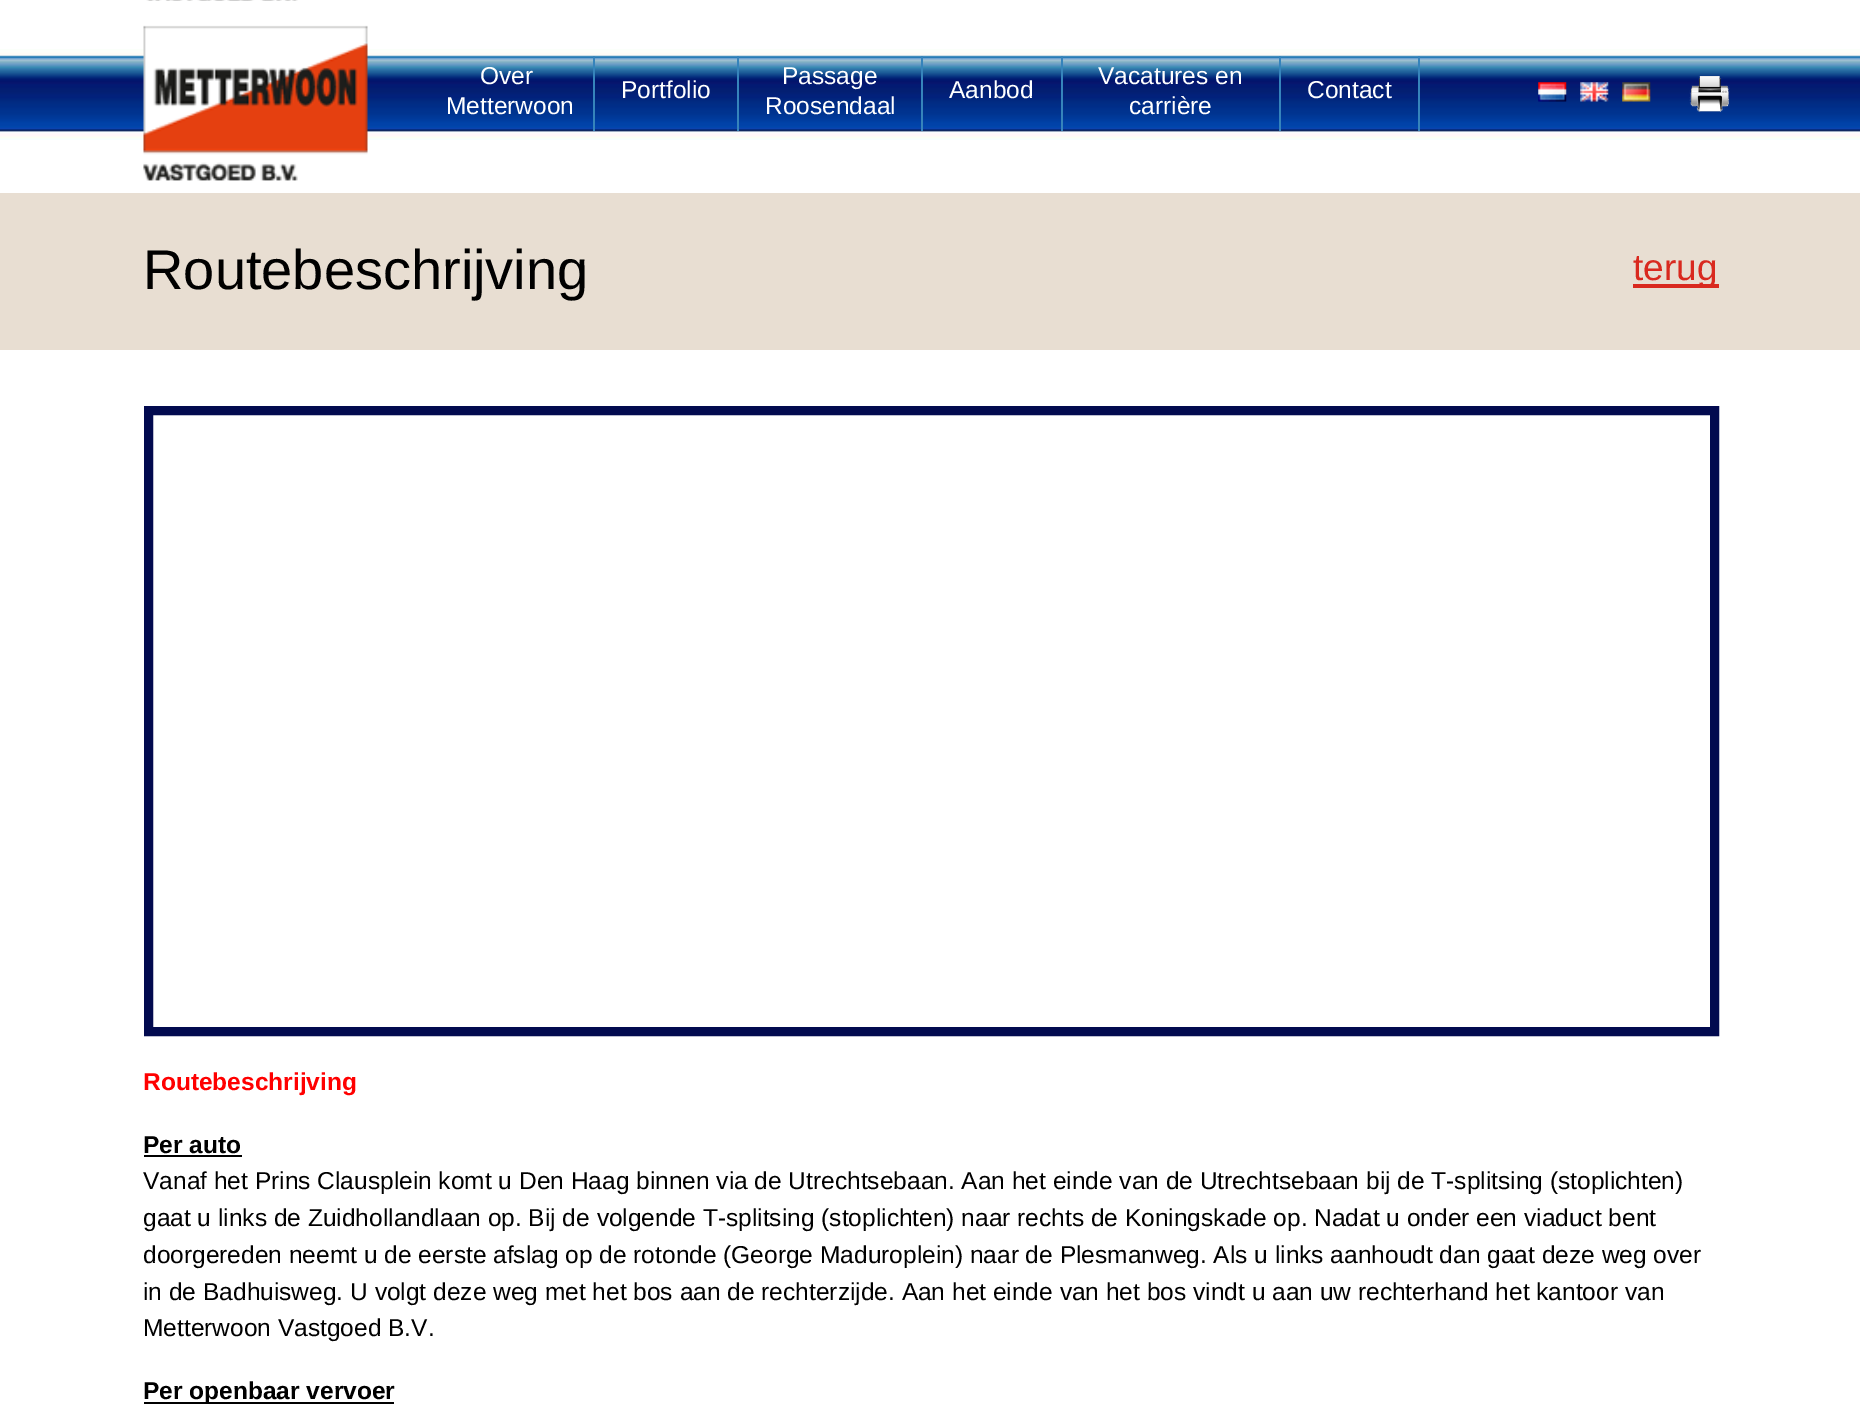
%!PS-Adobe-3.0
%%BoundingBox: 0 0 1860 1419
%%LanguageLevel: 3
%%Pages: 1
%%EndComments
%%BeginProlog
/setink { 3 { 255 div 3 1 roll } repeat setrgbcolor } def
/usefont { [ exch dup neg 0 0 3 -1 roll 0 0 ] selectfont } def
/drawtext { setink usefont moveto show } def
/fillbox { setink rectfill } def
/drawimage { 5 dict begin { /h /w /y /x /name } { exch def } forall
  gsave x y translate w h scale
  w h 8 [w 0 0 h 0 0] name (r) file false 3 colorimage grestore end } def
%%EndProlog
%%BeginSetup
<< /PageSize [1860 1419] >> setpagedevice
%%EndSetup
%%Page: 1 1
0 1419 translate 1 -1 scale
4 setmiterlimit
0 0 1860 1419 255 255 255 fillbox
(assets/img1.rgb) 0 49 1860 91 drawimage
(assets/img2.rgb) 143 0 225 181 drawimage
593 56 2 75 54 132 187 fillbox
(Over) 480 84 /LiberationSans-Regular 24.5 255 255 255 drawtext
(Metterwoon) 446 114 /LiberationSans-Regular 24.5 255 255 255 drawtext
737 56 2 75 54 132 187 fillbox
(Portfolio) 621 98 /LiberationSans-Regular 24.5 255 255 255 drawtext
921 56 2 75 54 132 187 fillbox
(Passage) 782 84 /LiberationSans-Regular 24.5 255 255 255 drawtext
(Roosendaal) 765 114 /LiberationSans-Regular 24.5 255 255 255 drawtext
1061 56 2 75 54 132 187 fillbox
(Aanbod) 949 98 /LiberationSans-Regular 24.5 255 255 255 drawtext
1279 56 2 75 54 132 187 fillbox
(Vacatures en) 1098 84 /LiberationSans-Regular 24.5 255 255 255 drawtext
(carrière) 1129 114 /LiberationSans-Regular 24.5 255 255 255 drawtext
1418 56 2 75 54 132 187 fillbox
(Contact) 1307 98 /LiberationSans-Regular 24.5 255 255 255 drawtext
(assets/img3.rgb) 1538 82 29 20 drawimage
(assets/img4.rgb) 1580 82 29 20 drawimage
(assets/img5.rgb) 1622 82 29 20 drawimage
(assets/img6.rgb) 1689 76 41 36 drawimage
0 193 1860 157 232 222 210 fillbox
(Routebeschrijving) 143 289 /LiberationSans-Regular 56 0 0 0 drawtext
1633 284 86 4 217 41 31 fillbox
(terug) 1633 280 /LiberationSans-Regular 37 217 41 31 drawtext
2 10 79 setink
9 setlinewidth
148.5 410.5 1566 621 rectstroke
(Routebeschrijving) 143 1090 /LiberationSans-Bold 24.5 255 0 0 drawtext
(Per auto) 143 1153 /LiberationSans-Bold 24.5 0 0 0 drawtext
144 1155 98 2 0 0 0 fillbox
(Vanaf het Prins Clausplein komt u Den Haag binnen via de Utrechtsebaan. Aan het einde van de Utrechtsebaan bij de T-splitsing \(stoplichten\)) 143 1189 /LiberationSans-Regular 24.5 0 0 0 drawtext
(gaat u links de Zuidhollandlaan op. Bij de volgende T-splitsing \(stoplichten\) naar rechts de Koningskade op. Nadat u onder een viaduct bent) 143 1226 /LiberationSans-Regular 24.5 0 0 0 drawtext
(doorgereden neemt u de eerste afslag op de rotonde \(George Maduroplein\) naar de Plesmanweg. Als u links aanhoudt dan gaat deze weg over) 143 1263 /LiberationSans-Regular 24.5 0 0 0 drawtext
(in de Badhuisweg. U volgt deze weg met het bos aan de rechterzijde. Aan het einde van het bos vindt u aan uw rechterhand het kantoor van) 143 1300 /LiberationSans-Regular 24.5 0 0 0 drawtext
(Metterwoon Vastgoed B.V.) 143 1336 /LiberationSans-Regular 24.5 0 0 0 drawtext
144 1402 250 2 0 0 0 fillbox
(Per openbaar vervoer) 143 1399 /LiberationSans-Bold 24.5 0 0 0 drawtext
showpage
%%EOF
